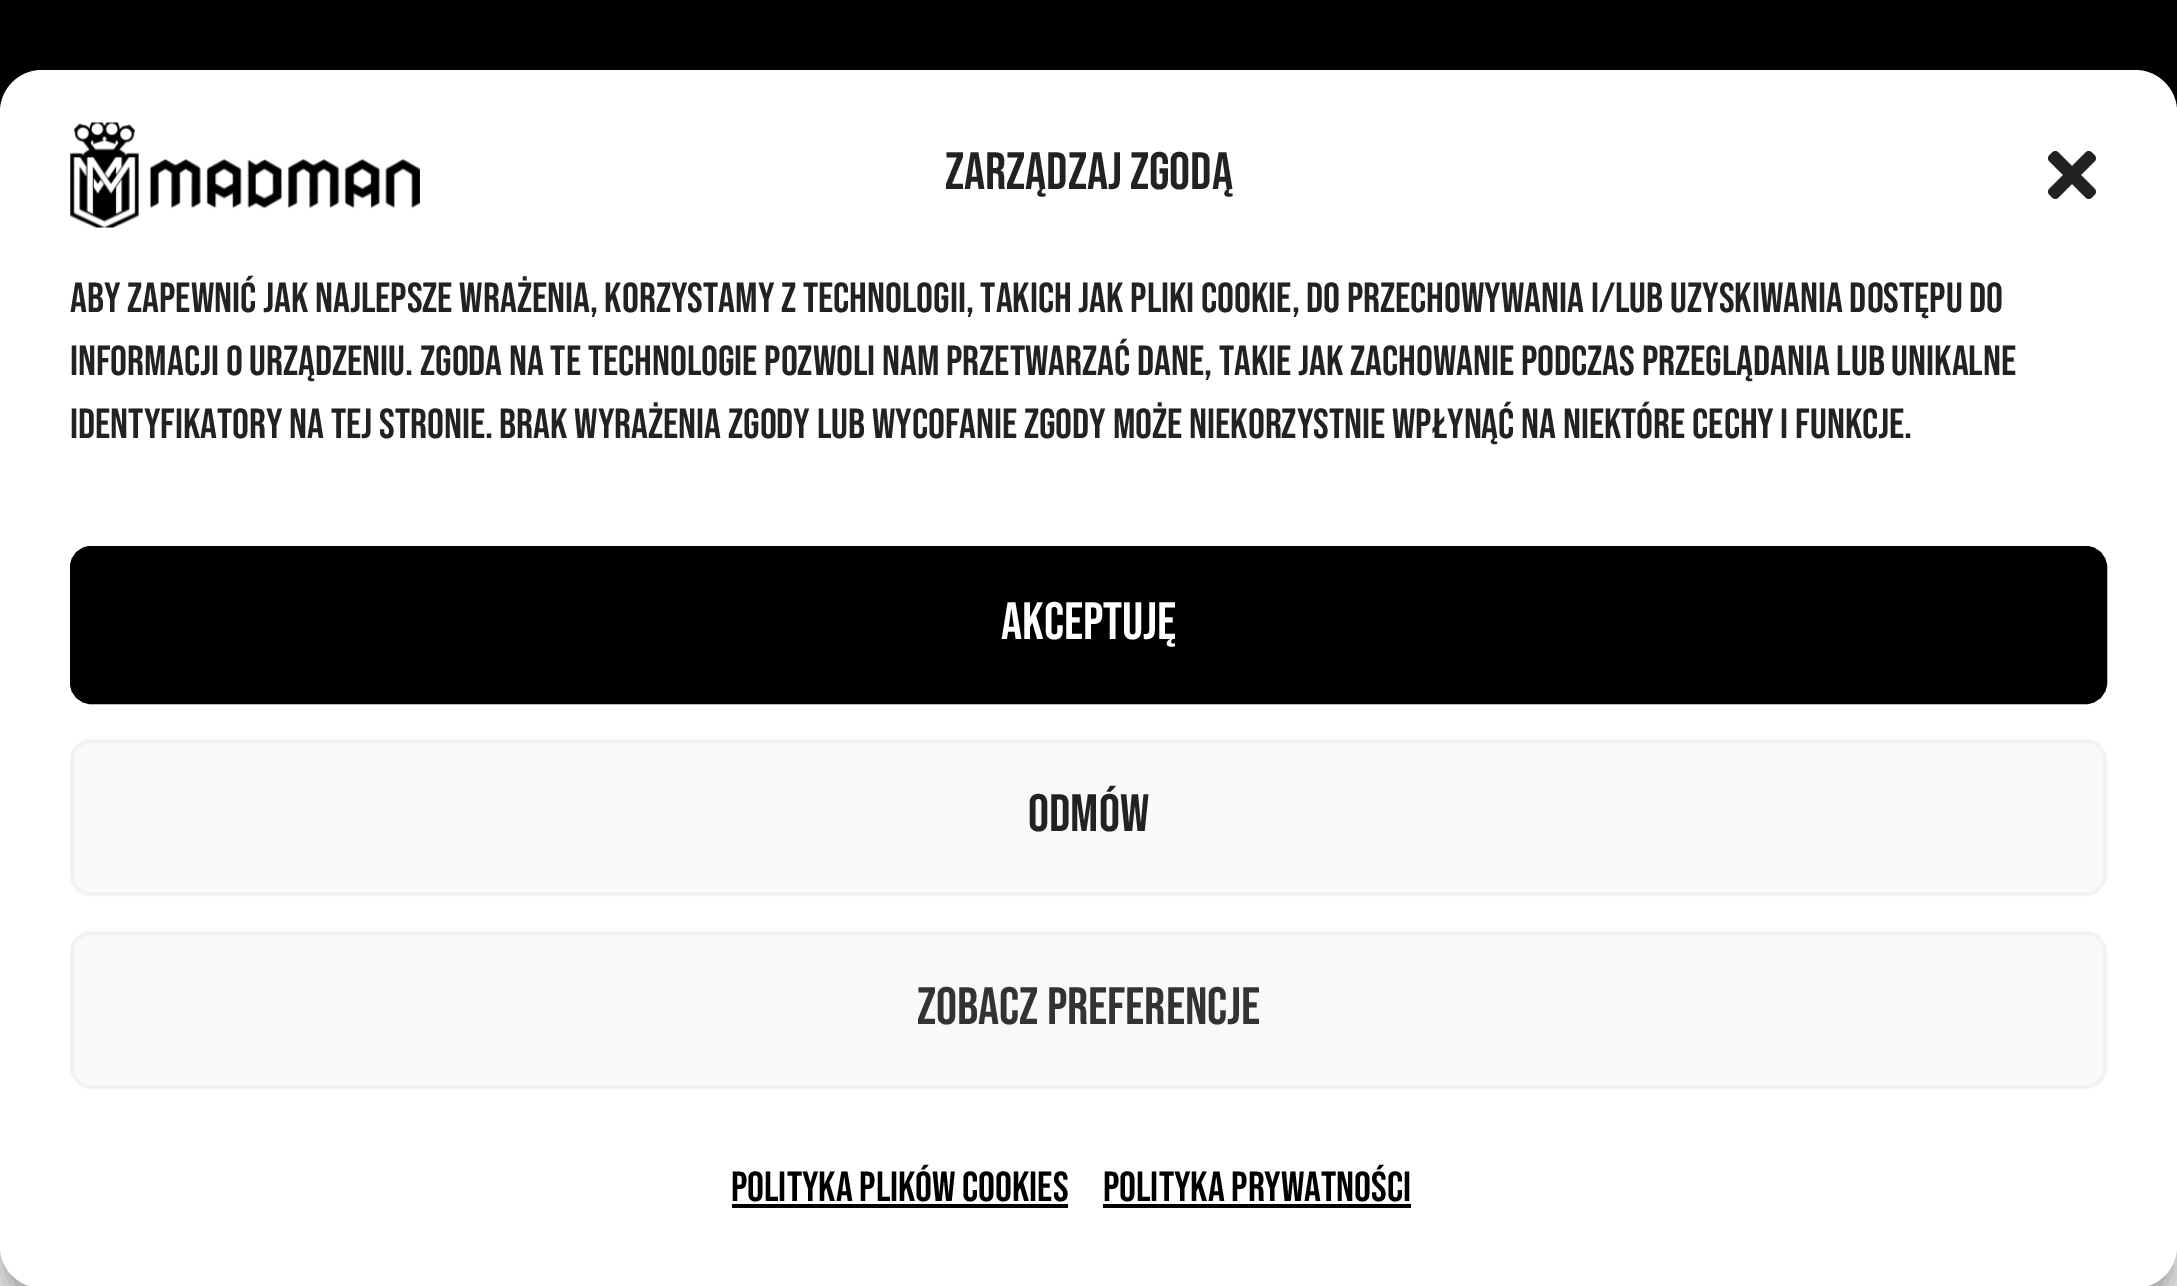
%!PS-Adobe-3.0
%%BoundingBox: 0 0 2177 1286
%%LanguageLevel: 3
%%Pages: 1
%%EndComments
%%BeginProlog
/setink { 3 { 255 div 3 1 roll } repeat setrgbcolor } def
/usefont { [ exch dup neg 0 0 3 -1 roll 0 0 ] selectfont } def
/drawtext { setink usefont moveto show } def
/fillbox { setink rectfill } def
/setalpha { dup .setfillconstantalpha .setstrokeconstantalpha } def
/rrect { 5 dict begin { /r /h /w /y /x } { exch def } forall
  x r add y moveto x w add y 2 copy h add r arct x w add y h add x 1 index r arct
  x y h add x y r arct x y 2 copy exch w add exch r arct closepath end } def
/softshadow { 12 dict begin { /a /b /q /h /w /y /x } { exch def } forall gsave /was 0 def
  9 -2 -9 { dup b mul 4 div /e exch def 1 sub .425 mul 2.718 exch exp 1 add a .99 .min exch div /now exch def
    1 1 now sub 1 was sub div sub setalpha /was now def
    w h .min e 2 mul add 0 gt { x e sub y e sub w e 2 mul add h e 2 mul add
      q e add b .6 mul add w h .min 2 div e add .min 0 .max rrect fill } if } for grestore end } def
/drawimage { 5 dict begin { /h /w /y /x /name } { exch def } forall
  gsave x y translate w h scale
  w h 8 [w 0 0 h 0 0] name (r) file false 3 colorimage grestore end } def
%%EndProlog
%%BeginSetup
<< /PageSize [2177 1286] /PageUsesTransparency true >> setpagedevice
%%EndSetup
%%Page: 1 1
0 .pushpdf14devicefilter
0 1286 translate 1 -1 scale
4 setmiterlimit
0 0 2177 1286 255 255 255 fillbox
0 0 2177 112 0 0 0 fillbox
0 91 2177 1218 42 10.5 0.23 softshadow
0 105 2177 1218 42 35 0.19 softshadow
255 255 255 setink
0 70 2177 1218 42 rrect fill
(assets/img1.rgb) 70 122 350 106 drawimage
(Zarządzaj zgodą) 945 189 /BebasNeue-Regular 52.5 34 34 34 drawtext
(assets/img2.rgb) 2047 150 50 50 drawimage
(Aby zapewnić jak najlepsze wrażenia, korzystamy z technologii, takich jak pliki cookie, do przechowywania i/lub uzyskiwania dostępu do) 70 312 /BebasNeue-Regular 42 34 34 34 drawtext
(informacji o urządzeniu. Zgoda na te technologie pozwoli nam przetwarzać dane, takie jak zachowanie podczas przeglądania lub unikalne) 70 375 /BebasNeue-Regular 42 34 34 34 drawtext
(identyfikatory na tej stronie. Brak wyrażenia zgody lub wycofanie zgody może niekorzystnie wpłynąć na niektóre cechy i funkcje.) 70 438 /BebasNeue-Regular 42 34 34 34 drawtext
0 0 0 setink
72 548 2033 154 19 rrect gsave fill grestore
4 setlinewidth
stroke
(Akceptuję) 1001 639 /BebasNeue-Regular 52.5 255 255 255 drawtext
249 249 249 setink
72 741 2033 153 19 rrect gsave fill grestore
242 242 242 setink
stroke
(Odmów) 1028 831 /BebasNeue-Regular 52.5 34 34 34 drawtext
249 249 249 setink
72 933 2033 154 19 rrect gsave fill grestore
242 242 242 setink
stroke
(Zobacz preferencje) 917 1024 /BebasNeue-Regular 52.5 51 51 51 drawtext
(Polityka plików cookies) 731 1201 /BebasNeue-Regular 42 0 0 0 drawtext
732 1204 336 4 0 0 0 fillbox
(Polityka prywatności) 1103 1201 /BebasNeue-Regular 42 0 0 0 drawtext
1103 1204 308 4 0 0 0 fillbox
.poppdf14devicefilter showpage
%%EOF
